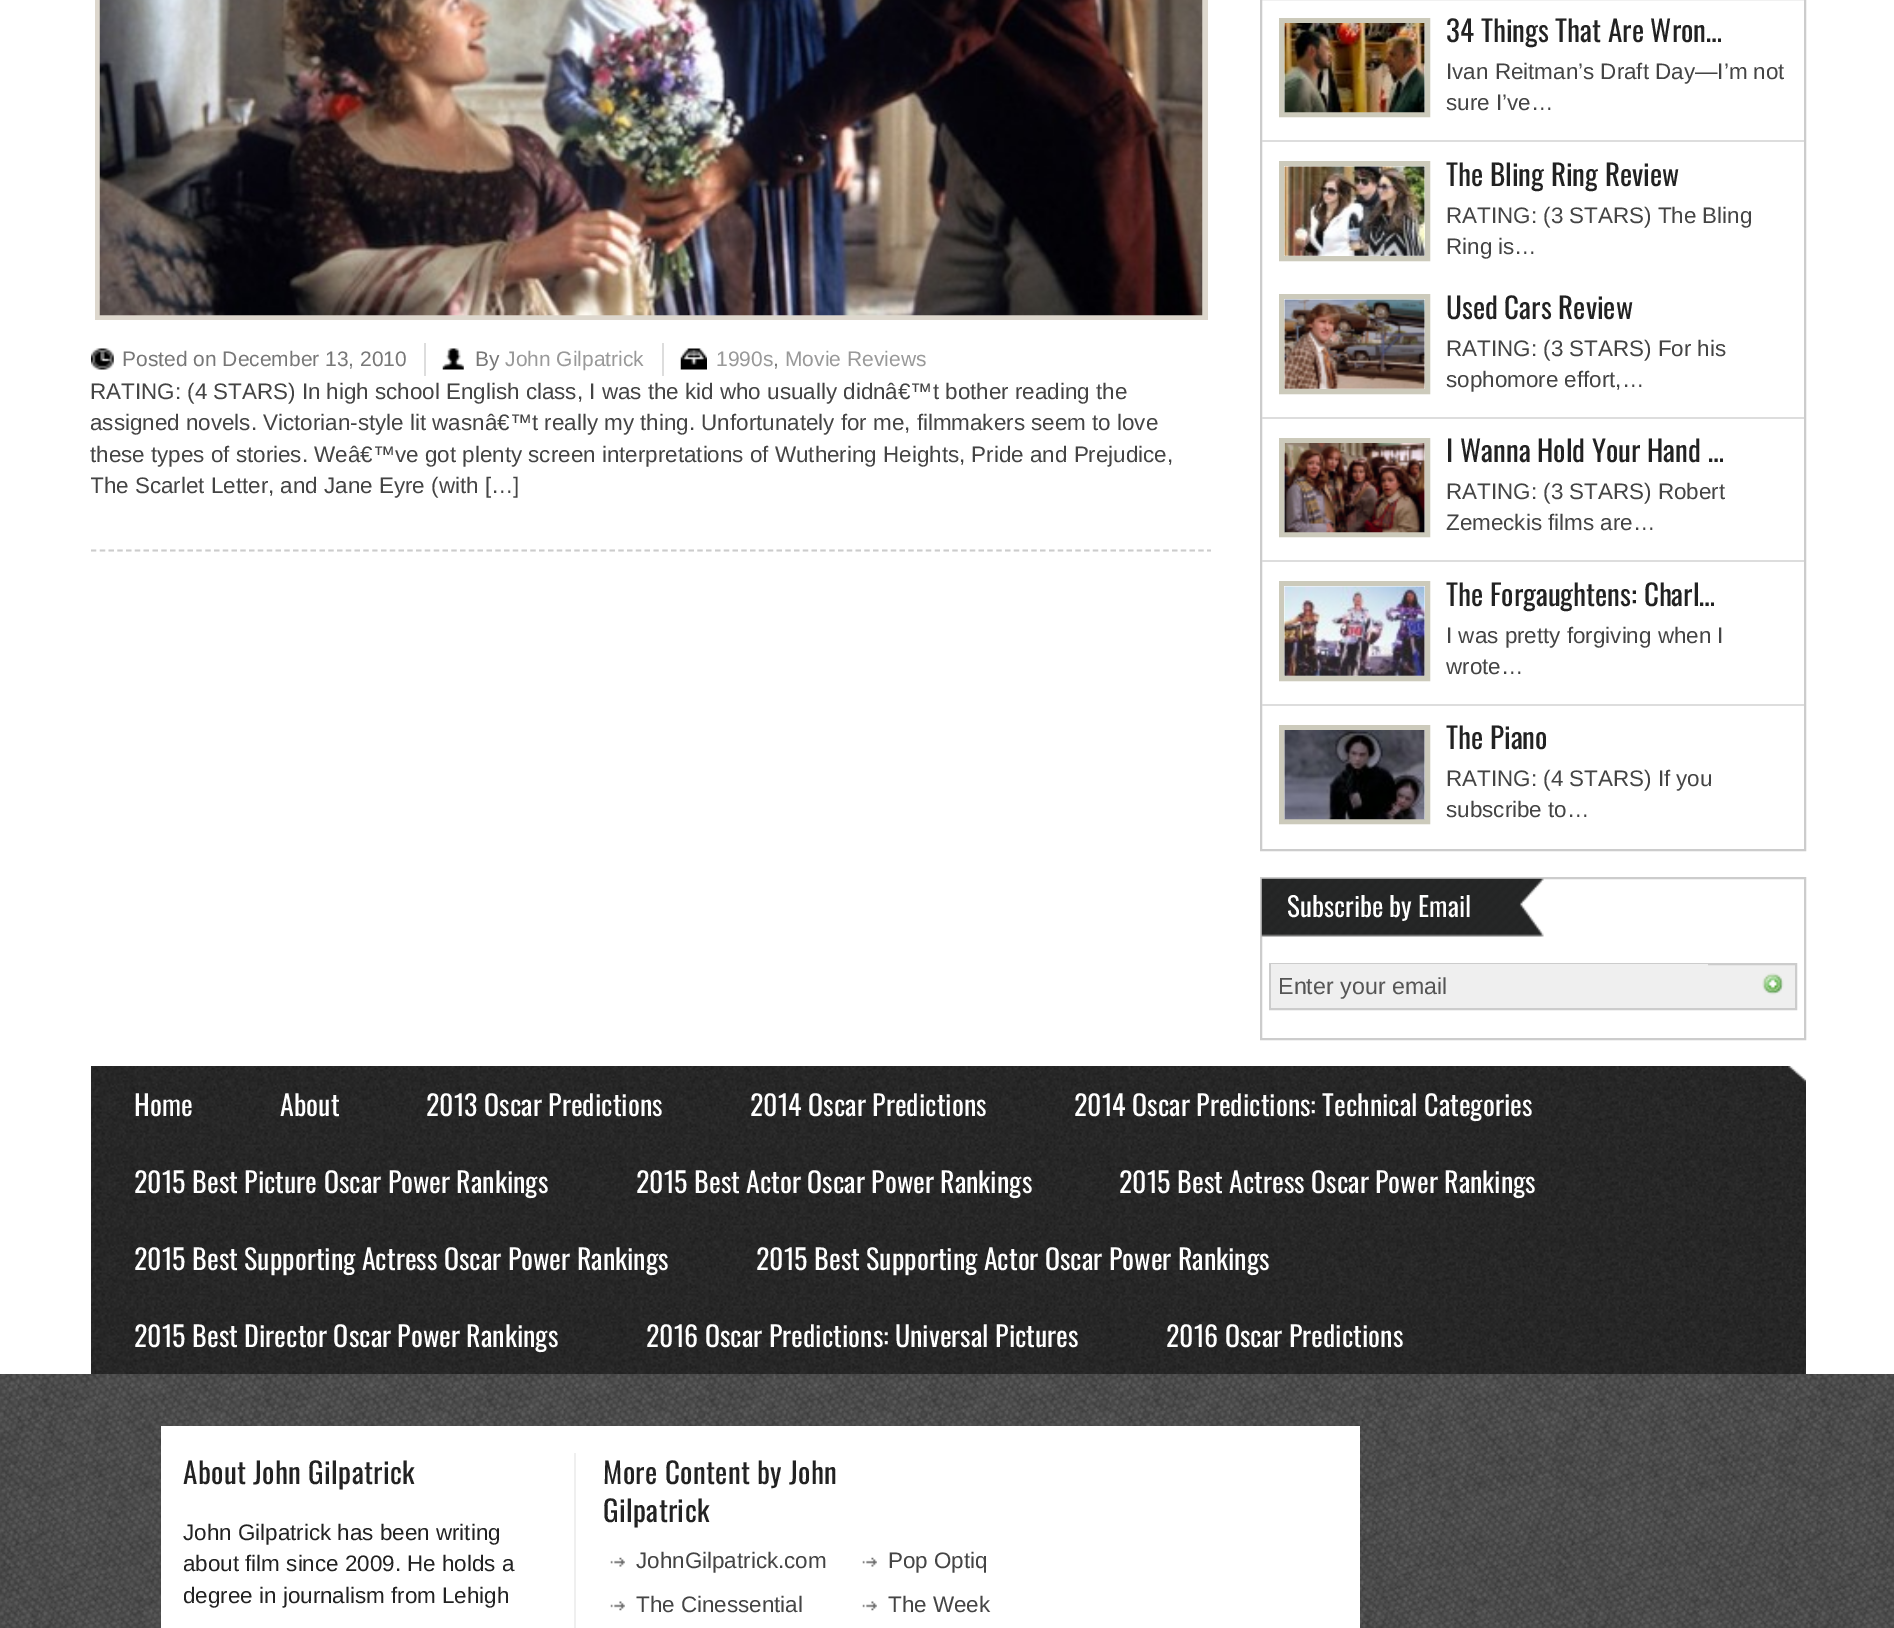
%!PS-Adobe-3.0
%%BoundingBox: 0 0 1894 1628
%%LanguageLevel: 3
%%Pages: 1
%%EndComments
%%BeginProlog
/setink { 3 { 255 div 3 1 roll } repeat setrgbcolor } def
/usefont { [ exch dup neg 0 0 3 -1 roll 0 0 ] selectfont } def
/drawtext { setink usefont moveto show } def
/fillbox { setink rectfill } def
/drawimage { 5 dict begin { /h /w /y /x /name } { exch def } forall
  gsave x y translate w h scale
  w h 8 [w 0 0 h 0 0] name (r) file false 3 colorimage grestore end } def
%%EndProlog
%%BeginSetup
<< /PageSize [1894 1628] >> setpagedevice
%%EndSetup
%%Page: 1 1
0 1628 translate 1 -1 scale
4 setmiterlimit
0 0 1894 1628 255 255 255 fillbox
204 204 204 setink
1.8 setlinewidth
[5.25 3.54] 0 setdash
91 550.5 moveto 1211 550.5 lineto stroke
95 0 1113 320 221 215 205 fillbox
(assets/img1.rgb) 99 0 1104 316 drawimage
(assets/img2.rgb) 91 348 23 22 drawimage
424 343 2 33 221 221 221 fillbox
(Posted on December 13, 2010) 122 366 /LiberationSans-Regular 21 119 119 119 drawtext
(assets/img3.rgb) 442 348 22 22 drawimage
662 343 2 33 221 221 221 fillbox
(By) 475 366 /LiberationSans-Regular 21 119 119 119 drawtext
(John Gilpatrick) 505 366 /LiberationSans-Regular 21 153 153 153 drawtext
(assets/img4.rgb) 680 348 27 22 drawimage
(1990s) 716 366 /LiberationSans-Regular 21 153 153 153 drawtext
(,) 773 366 /LiberationSans-Regular 21 119 119 119 drawtext
(Movie Reviews) 785 366 /LiberationSans-Regular 21 153 153 153 drawtext
(RATING: \(4 STARS\) In high school English class, I was the kid who usually didnâ€™t bother reading the) 90 399 /LiberationSans-Regular 22.4 68 68 68 drawtext
(assigned novels. Victorian-style lit wasnâ€™t really my thing. Unfortunately for me, filmmakers seem to love) 90 430 /LiberationSans-Regular 22.4 68 68 68 drawtext
(these types of stories. Weâ€™ve got plenty screen interpretations of Wuthering Heights, Pride and Prejudice,) 90 462 /LiberationSans-Regular 22.4 68 68 68 drawtext
gsave
91 0 1120 550 rectclip
(The Scarlet Letter, and Jane Eyre \(with […]) 90 493 /LiberationSans-Regular 22.4 68 68 68 drawtext
grestore
204 204 204 setink
2 setlinewidth
[] 0 setdash
1261 -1 544 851 rectstroke
1262 140 542 2 221 221 221 fillbox
204 202 187 setink
5 setlinewidth
1281.5 20.5 146 94 rectstroke
(assets/img5.rgb) 1284 23 141 90 drawimage
(34 Things That Are Wron…) 1446 42 /Oswald-Regular 29.1 34 34 34 drawtext
(Ivan Reitman’s Draft Day—I’m not) 1446 79 /LiberationSans-Regular 22.4 68 68 68 drawtext
(sure I’ve…) 1446 110 /LiberationSans-Regular 22.4 68 68 68 drawtext
204 202 187 setink
1281.5 163.5 146 95 rectstroke
(assets/img6.rgb) 1284 166 141 90 drawimage
(The Bling Ring Review) 1446 186 /Oswald-Regular 29.1 34 34 34 drawtext
(RATING: \(3 STARS\) The Bling) 1446 223 /LiberationSans-Regular 22.4 68 68 68 drawtext
(Ring is…) 1446 254 /LiberationSans-Regular 22.4 68 68 68 drawtext
1262 417 542 2 221 221 221 fillbox
204 202 187 setink
1281.5 296.5 146 95 rectstroke
(assets/img7.rgb) 1284 299 141 90 drawimage
(Used Cars Review) 1446 319 /Oswald-Regular 29.1 34 34 34 drawtext
(RATING: \(3 STARS\) For his) 1446 356 /LiberationSans-Regular 22.4 68 68 68 drawtext
(sophomore effort,…) 1446 387 /LiberationSans-Regular 22.4 68 68 68 drawtext
1262 560 542 2 221 221 221 fillbox
204 202 187 setink
1281.5 440.5 146 94 rectstroke
(assets/img8.rgb) 1284 443 141 90 drawimage
(I Wanna Hold Your Hand …) 1446 462 /Oswald-Regular 29.1 34 34 34 drawtext
(RATING: \(3 STARS\) Robert) 1446 499 /LiberationSans-Regular 22.4 68 68 68 drawtext
(Zemeckis films are…) 1446 530 /LiberationSans-Regular 22.4 68 68 68 drawtext
1262 704 542 2 221 221 221 fillbox
204 202 187 setink
1281.5 583.5 146 95 rectstroke
(assets/img9.rgb) 1284 586 141 90 drawimage
(The Forgaughtens: Charl…) 1446 606 /Oswald-Regular 29.1 34 34 34 drawtext
(I was pretty forgiving when I) 1446 643 /LiberationSans-Regular 22.4 68 68 68 drawtext
(wrote…) 1446 674 /LiberationSans-Regular 22.4 68 68 68 drawtext
204 202 187 setink
1281.5 727.5 146 94 rectstroke
(assets/img10.rgb) 1284 730 141 90 drawimage
(The Piano) 1446 749 /Oswald-Regular 29.1 34 34 34 drawtext
(RATING: \(4 STARS\) If you) 1446 786 /LiberationSans-Regular 22.4 68 68 68 drawtext
(subscribe to…) 1446 817 /LiberationSans-Regular 22.4 68 68 68 drawtext
204 204 204 setink
2 setlinewidth
1261 878 544 161 rectstroke
(assets/img11.rgb) 1261 878 283 59 drawimage
(Subscribe by Email) 1287 917 /Oswald-Regular 27 255 255 255 drawtext
1708 965 87 43 239 239 239 fillbox
204 204 204 setink
1270 964 526 45 rectstroke
1271 964 437 44 239 239 239 fillbox
(Enter your email) 1278 994 /LiberationSans-Regular 23.25 85 85 85 drawtext
(assets/img12.rgb) 1762 973 22 22 drawimage
(assets/img13.rgb) 91 1066 1715 308 drawimage
(assets/img14.rgb) 1787 1066 19 16 drawimage
(Home) 134 1116 /Oswald-Regular 28 255 255 255 drawtext
(About) 280 1116 /Oswald-Regular 28 255 255 255 drawtext
(2013 Oscar Predictions) 426 1116 /Oswald-Regular 28 255 255 255 drawtext
(2014 Oscar Predictions) 750 1116 /Oswald-Regular 28 255 255 255 drawtext
(2014 Oscar Predictions: Technical Categories) 1074 1116 /Oswald-Regular 28 255 255 255 drawtext
(2015 Best Picture Oscar Power Rankings) 134 1193 /Oswald-Regular 28 255 255 255 drawtext
(2015 Best Actor Oscar Power Rankings) 636 1193 /Oswald-Regular 28 255 255 255 drawtext
(2015 Best Actress Oscar Power Rankings) 1119 1193 /Oswald-Regular 28 255 255 255 drawtext
(2015 Best Supporting Actress Oscar Power Rankings) 134 1270 /Oswald-Regular 28 255 255 255 drawtext
(2015 Best Supporting Actor Oscar Power Rankings) 756 1270 /Oswald-Regular 28 255 255 255 drawtext
(2015 Best Director Oscar Power Rankings) 134 1347 /Oswald-Regular 28 255 255 255 drawtext
(2016 Oscar Predictions: Universal Pictures) 646 1347 /Oswald-Regular 28 255 255 255 drawtext
(2016 Oscar Predictions) 1166 1347 /Oswald-Regular 28 255 255 255 drawtext
(assets/img15.rgb) 0 1374 1894 254 drawimage
161 1426 1199 202 255 255 255 fillbox
574 1453 2 175 239 239 239 fillbox
/Oswald-Regular 29.1 usefont
34 34 34 setink
183 1484 moveto 0.35 0 (About John Gilpatrick) ashow
(John Gilpatrick has been writing) 183 1540 /LiberationSans-Regular 22.4 34 34 34 drawtext
(about film since 2009. He holds a) 183 1571 /LiberationSans-Regular 22.4 34 34 34 drawtext
(degree in journalism from Lehigh) 183 1603 /LiberationSans-Regular 22.4 34 34 34 drawtext
/Oswald-Regular 29.1 usefont
603 1484 moveto 0.35 0 (More Content by John) ashow
603 1522 moveto 0.35 0 (Gilpatrick) ashow
(assets/img16.rgb) 610 1557 15 10 drawimage
(JohnGilpatrick.com) 636 1568 /LiberationSans-Regular 22.4 68 68 68 drawtext
(assets/img17.rgb) 610 1601 15 10 drawimage
(The Cinessential) 636 1612 /LiberationSans-Regular 22.4 68 68 68 drawtext
(assets/img16.rgb) 862 1557 15 10 drawimage
(Pop Optiq) 888 1568 /LiberationSans-Regular 22.4 68 68 68 drawtext
(assets/img17.rgb) 862 1601 15 10 drawimage
(The Week) 888 1612 /LiberationSans-Regular 22.4 68 68 68 drawtext
showpage
%%EOF
